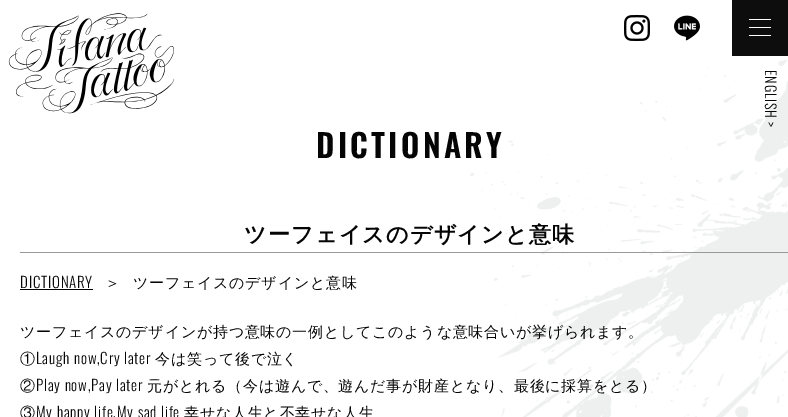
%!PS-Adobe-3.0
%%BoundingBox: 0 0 788 417
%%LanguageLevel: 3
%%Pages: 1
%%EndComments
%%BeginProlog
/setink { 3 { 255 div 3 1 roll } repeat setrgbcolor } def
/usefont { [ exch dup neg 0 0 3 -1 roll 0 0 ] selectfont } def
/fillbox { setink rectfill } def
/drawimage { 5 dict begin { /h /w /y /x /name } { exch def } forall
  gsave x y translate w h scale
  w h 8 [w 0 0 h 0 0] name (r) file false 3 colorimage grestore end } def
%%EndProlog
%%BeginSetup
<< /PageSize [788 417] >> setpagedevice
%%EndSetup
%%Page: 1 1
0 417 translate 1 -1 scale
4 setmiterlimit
0 0 788 417 255 255 255 fillbox
(assets/img1.rgb) 470 60 318 357 drawimage
(assets/img2.rgb) 8 13 167 101 drawimage
(assets/img3.rgb) 624 15 26 26 drawimage
(assets/img4.rgb) 674 15 26 26 drawimage
732 0 56 56 13 13 13 fillbox
749 27 22 1 255 255 255 fillbox
749 19 22 1 255 255 255 fillbox
749 35 22 1 255 255 255 fillbox
/Oswald-Light 14.25 usefont
5 5 5 setink
gsave 765 70 translate 90 rotate 0 0 moveto 0.75 0 (ENGLISH >) ashow grestore
/Oswald-SemiBold 32 usefont
316 158 moveto 3.25 0 (DICTIONARY) ashow
20 252 768 1 153 153 153 fillbox
/WenQuanYiZenHei-Bold 22 usefont
5 5 5 setink
244 242 moveto 1.25 0 (ツーフェイスのデザインと意味) ashow
/Oswald-Light 15 usefont
20 288 moveto 0.75 0 (DICTIONARY) ashow
20 289 73 1 0 0 0 fillbox
/WenQuanYiZenHei-Medium 15 usefont
5 5 5 setink
105 288 moveto 0.75 0 (＞) ashow
133 288 moveto 0.75 0 (ツーフェイスのデザインと意味) ashow
20 337 moveto 0.75 0 (ツーフェイスのデザインが持つ意味の一例としてこのような意味合いが挙げられます。) ashow
20 364 moveto 0.75 0 (①) ashow
/Oswald-Light 15 usefont
36 364 moveto 0.75 0 (Laugh now,Cry later) ashow
/WenQuanYiZenHei-Medium 15 usefont
155 364 moveto 0.75 0 (今は笑って後で泣く) ashow
20 391 moveto 0.75 0 (②) ashow
/Oswald-Light 15 usefont
36 391 moveto 0.75 0 (Play now,Pay later) ashow
/WenQuanYiZenHei-Medium 15 usefont
147 391 moveto 0.75 0 (元がとれる（今は遊んで、遊んだ事が財産となり、最後に採算をとる）) ashow
20 418 moveto 0.75 0 (③) ashow
/Oswald-Light 15 usefont
36 418 moveto 0.75 0 (My happy life,My sad life) ashow
/WenQuanYiZenHei-Medium 15 usefont
184 418 moveto 0.75 0 (幸せな人生と不幸せな人生) ashow
showpage
%%EOF
